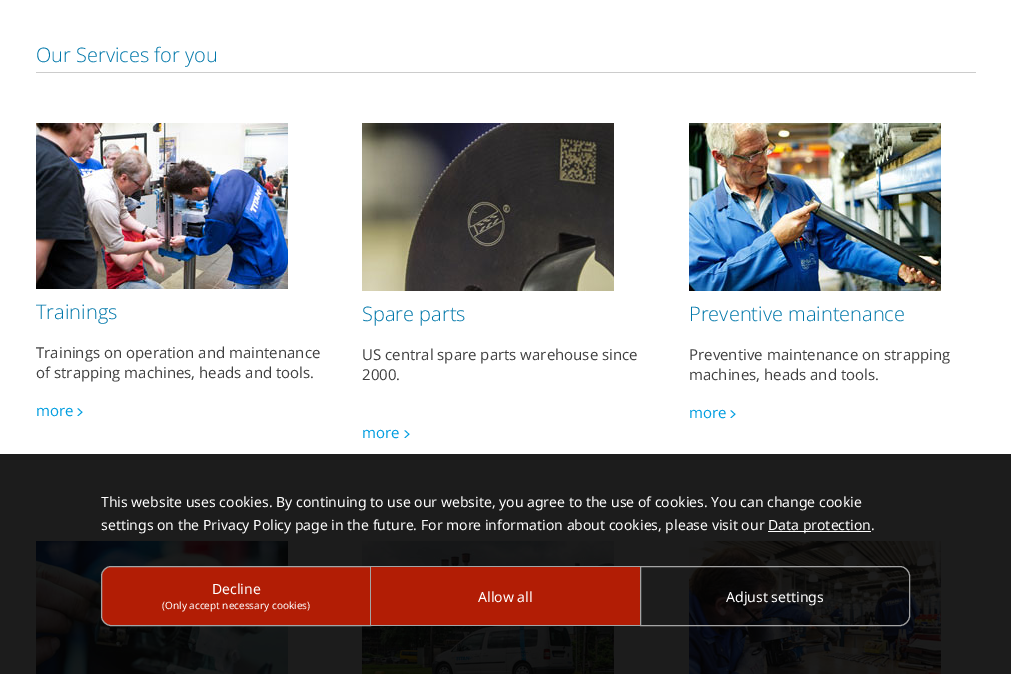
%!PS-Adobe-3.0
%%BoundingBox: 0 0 1011 674
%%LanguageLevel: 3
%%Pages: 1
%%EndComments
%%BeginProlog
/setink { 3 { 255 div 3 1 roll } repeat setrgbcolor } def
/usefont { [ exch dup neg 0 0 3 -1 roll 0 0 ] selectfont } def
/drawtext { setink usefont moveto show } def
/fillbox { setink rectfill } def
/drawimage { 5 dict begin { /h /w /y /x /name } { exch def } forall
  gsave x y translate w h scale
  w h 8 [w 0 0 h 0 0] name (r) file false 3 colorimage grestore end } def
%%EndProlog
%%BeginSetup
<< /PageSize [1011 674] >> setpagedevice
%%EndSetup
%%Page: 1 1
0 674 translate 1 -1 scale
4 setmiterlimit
0 0 1011 674 255 255 255 fillbox
0 454 1011 220 28 28 28 fillbox
36 72 940 1 204 204 204 fillbox
(Our Services for you) 36 62 /OpenSans-Light 20 0 119 170 drawtext
(assets/img1.rgb) 36 123 252 166 drawimage
(Trainings) 36 319 /OpenSans-Light 20 0 119 170 drawtext
(Trainings on operation and maintenance) 36 358 /OpenSans-Regular 15 63 63 63 drawtext
(of strapping machines, heads and tools.) 36 378 /OpenSans-Regular 15 63 63 63 drawtext
(more) 36 416 /OpenSans-Regular 15 0 157 224 drawtext
(assets/img2.rgb) 77 408 6 8 drawimage
(assets/img3.rgb) 362 123 252 168 drawimage
(Spare parts) 362 321 /OpenSans-Light 20 0 119 170 drawtext
(US central spare parts warehouse since) 362 360 /OpenSans-Regular 15 63 63 63 drawtext
(2000.) 362 380 /OpenSans-Regular 15 63 63 63 drawtext
(more) 362 438 /OpenSans-Regular 15 0 157 224 drawtext
(assets/img2.rgb) 404 430 6 8 drawimage
(assets/img4.rgb) 689 123 252 168 drawimage
(Preventive maintenance) 689 321 /OpenSans-Light 20 0 119 170 drawtext
(Preventive maintenance on strapping) 689 360 /OpenSans-Regular 15 63 63 63 drawtext
(machines, heads and tools.) 689 380 /OpenSans-Regular 15 63 63 63 drawtext
(more) 689 418 /OpenSans-Regular 15 0 157 224 drawtext
(assets/img2.rgb) 730 410 6 8 drawimage
(assets/img5.rgb) 36 541 252 133 drawimage
(assets/img6.rgb) 362 541 252 133 drawimage
(assets/img7.rgb) 689 541 252 133 drawimage
(This website uses cookies. By continuing to use our website, you agree to the use of cookies. You can change cookie) 101 507 /NotoSans-Regular 14 255 255 255 drawtext
(settings on the Privacy Policy page in the future. For more information about cookies, please visit our) 101 530 /NotoSans-Regular 14 255 255 255 drawtext
768 531 103 1 255 255 255 fillbox
(Data protection.) 768 530 /NotoSans-Regular 14 255 255 255 drawtext
178 29 5 setink
111 566.5 moveto 370.5 566.5 lineto 370.5 625.5 lineto 111 625.5 lineto 106 625.5 101.5 621 101.5 616 curveto 101.5 576 lineto 101.5 571 106 566.5 111 566.5 curveto closepath gsave fill grestore
164 164 164 setink
stroke
(Decline) 212 594 /NotoSans-Regular 14 255 255 255 drawtext
(\(Only accept necessary cookies\)) 162 609 /NotoSans-Regular 10 255 255 255 drawtext
371 567 269 58 178 29 5 fillbox
371 566 269 1 164 164 164 fillbox
371 625 269 1 164 164 164 fillbox
(Allow all) 478 602 /NotoSans-Regular 14 255 255 255 drawtext
164 164 164 setink
640.5 566.5 moveto 900 566.5 lineto 905 566.5 909.5 571 909.5 576 curveto 909.5 616 lineto 909.5 621 905 625.5 900 625.5 curveto 640.5 625.5 lineto closepath stroke
(Adjust settings) 726 602 /NotoSans-Regular 14 255 255 255 drawtext
showpage
%%EOF
